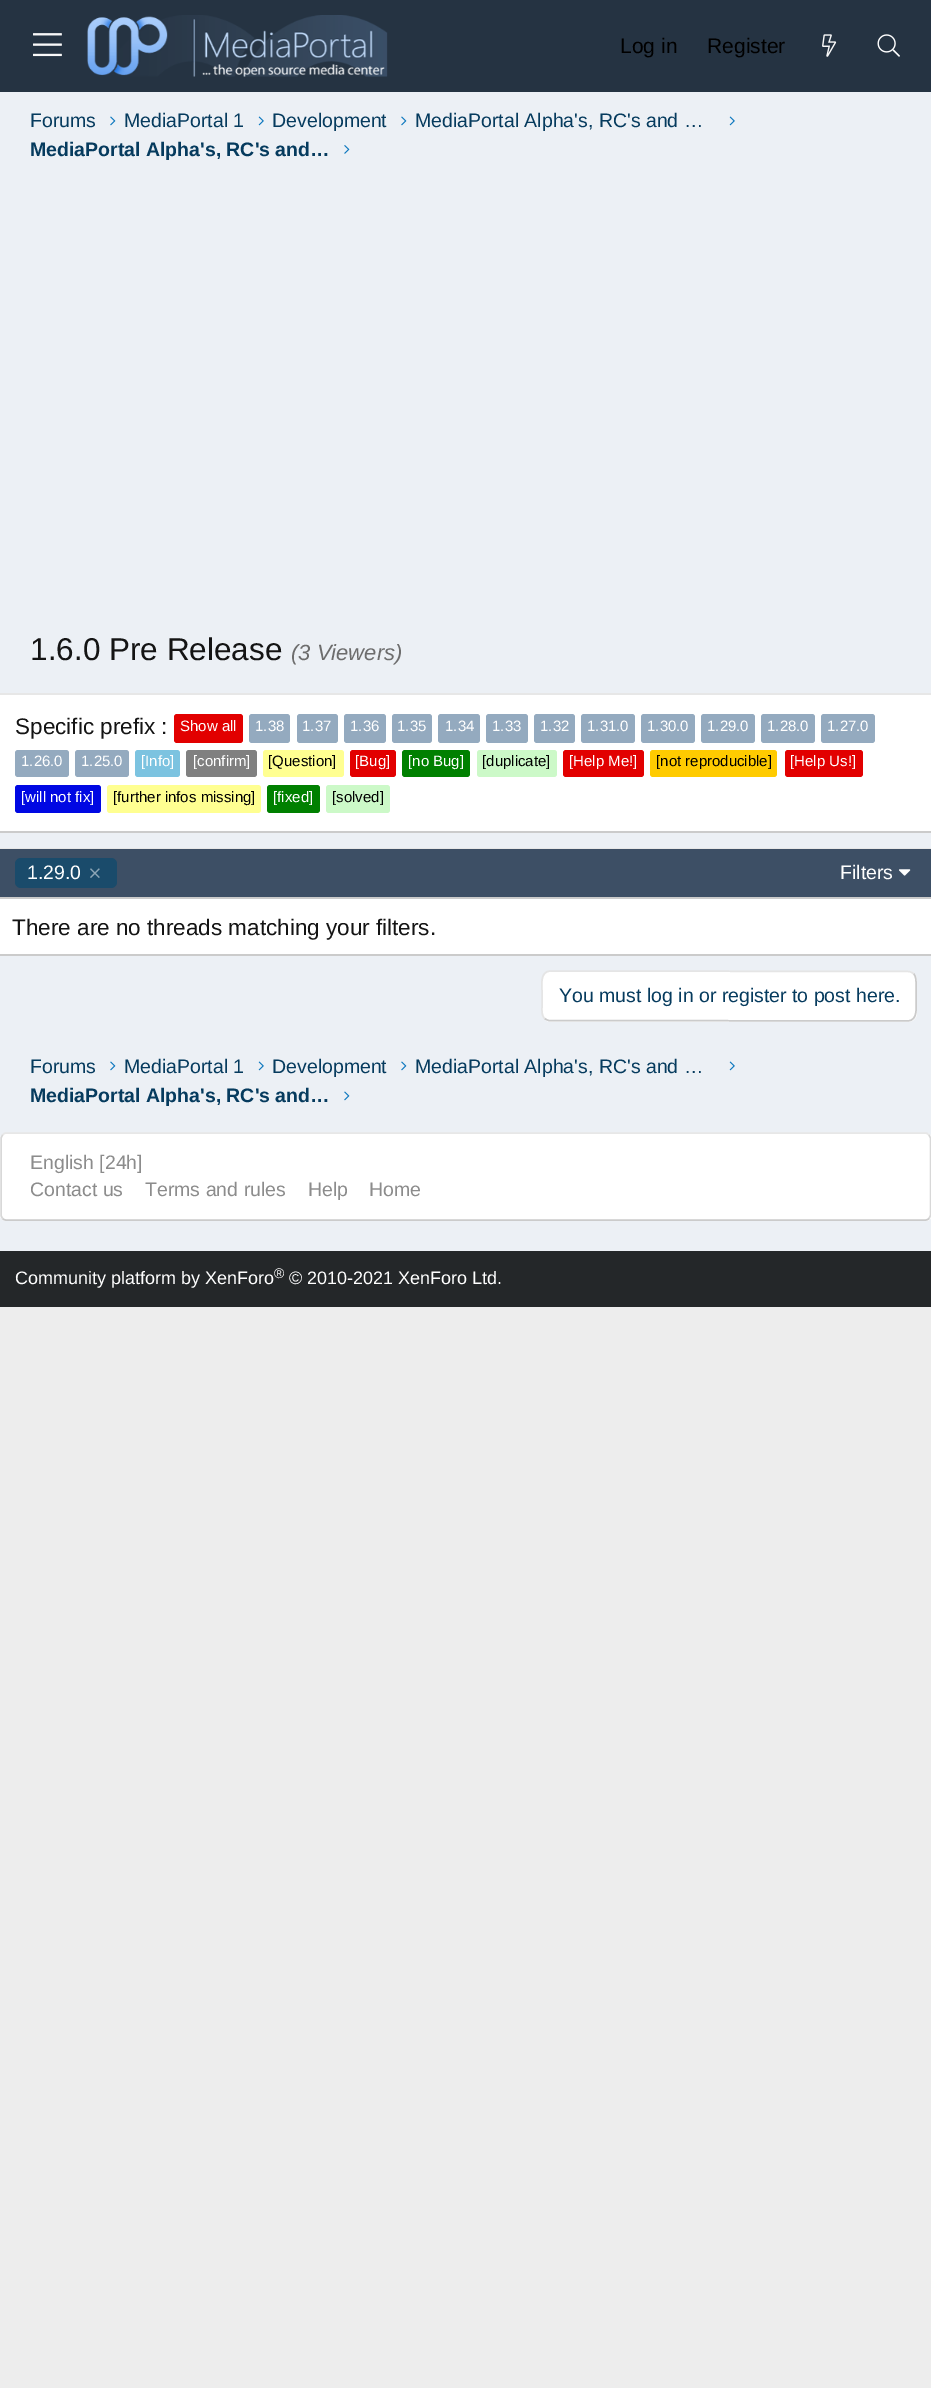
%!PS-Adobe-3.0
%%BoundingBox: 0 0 931 2388
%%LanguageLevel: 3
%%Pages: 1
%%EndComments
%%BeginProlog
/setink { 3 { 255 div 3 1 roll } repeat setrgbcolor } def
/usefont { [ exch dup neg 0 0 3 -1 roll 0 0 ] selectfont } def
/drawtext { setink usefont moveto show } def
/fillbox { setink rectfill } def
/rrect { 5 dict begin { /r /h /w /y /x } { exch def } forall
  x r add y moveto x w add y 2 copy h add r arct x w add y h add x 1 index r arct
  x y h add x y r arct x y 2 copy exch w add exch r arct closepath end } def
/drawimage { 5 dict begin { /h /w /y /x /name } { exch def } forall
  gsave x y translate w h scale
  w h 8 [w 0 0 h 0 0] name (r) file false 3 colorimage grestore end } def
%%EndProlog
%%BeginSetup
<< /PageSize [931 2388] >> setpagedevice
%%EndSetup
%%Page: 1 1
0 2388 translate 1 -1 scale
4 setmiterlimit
0 0 931 2388 237 237 237 fillbox
0 92 931 1159 236 240 245 fillbox
0 0 931 92 37 51 66 fillbox
(assets/img1.rgb) 33 33 29 24 drawimage
(assets/img2.rgb) 87 15 301 62 drawimage
(Log in) 620 53 /LiberationSans-Regular 21 0 0 0 drawtext
(Register) 707 53 /LiberationSans-Regular 21 0 0 0 drawtext
(assets/img3.rgb) 822 34 15 23 drawimage
(assets/img4.rgb) 877 34 23 23 drawimage
(Forums) 30 127 /LiberationSans-Regular 19.5 6 59 94 drawtext
(assets/img5.rgb) 110 116 6 10 drawimage
(MediaPortal 1) 124 127 /LiberationSans-Regular 19.5 6 59 94 drawtext
(assets/img6.rgb) 258 116 6 10 drawimage
(Development) 272 127 /LiberationSans-Regular 19.5 6 59 94 drawtext
(assets/img5.rgb) 401 116 6 10 drawimage
(MediaPortal Alpha's, RC's and …) 415 127 /LiberationSans-Regular 19.5 6 59 94 drawtext
(assets/img6.rgb) 729 116 6 10 drawimage
(MediaPortal Alpha's, RC's and…) 30 156 /LiberationSans-Bold 19.5 6 59 94 drawtext
(assets/img7.rgb) 344 145 6 9 drawimage
(1.6.0 Pre Release) 30 660 /LiberationSans-Regular 31.5 20 20 20 drawtext
(\(3 Viewers\)) 291 660 /LiberationSans-Italic 22 109 109 109 drawtext
0 695 931 136 255 255 255 fillbox
0 693 931 2 231 231 231 fillbox
0 831 931 2 203 203 203 fillbox
(Specific prefix :) 15 734 /LiberationSans-Regular 22.5 20 20 20 drawtext
226 0 0 setink
174 714 69 29 3 rrect fill
(Show all) 180 731 /LiberationSans-Regular 15 255 255 255 drawtext
148 170 191 setink
249 714 41 29 3 rrect fill
(1.38) 255 731 /LiberationSans-Regular 15 255 255 255 drawtext
148 170 191 setink
297 714 41 29 3 rrect fill
(1.37) 302 731 /LiberationSans-Regular 15 255 255 255 drawtext
148 170 191 setink
344 714 42 29 3 rrect fill
(1.36) 350 731 /LiberationSans-Regular 15 255 255 255 drawtext
148 170 191 setink
392 714 40 29 3 rrect fill
(1.35) 397 731 /LiberationSans-Regular 15 255 255 255 drawtext
148 170 191 setink
438 714 42 29 3 rrect fill
(1.34) 445 731 /LiberationSans-Regular 15 255 255 255 drawtext
148 170 191 setink
486 714 42 29 3 rrect fill
(1.33) 492 731 /LiberationSans-Regular 15 255 255 255 drawtext
148 170 191 setink
534 714 41 29 3 rrect fill
(1.32) 540 731 /LiberationSans-Regular 15 255 255 255 drawtext
148 170 191 setink
581 714 54 29 3 rrect fill
(1.31.0) 587 731 /LiberationSans-Regular 15 255 255 255 drawtext
148 170 191 setink
641 714 54 29 3 rrect fill
(1.30.0) 647 731 /LiberationSans-Regular 15 255 255 255 drawtext
148 170 191 setink
701 714 54 29 3 rrect fill
(1.29.0) 707 731 /LiberationSans-Regular 15 255 255 255 drawtext
148 170 191 setink
761 714 54 29 3 rrect fill
(1.28.0) 767 731 /LiberationSans-Regular 15 255 255 255 drawtext
148 170 191 setink
821 714 54 29 3 rrect fill
(1.27.0) 827 731 /LiberationSans-Regular 15 255 255 255 drawtext
148 170 191 setink
15 750 54 27 3 rrect fill
(1.26.0) 21 766 /LiberationSans-Regular 15 255 255 255 drawtext
148 170 191 setink
75 750 54 27 3 rrect fill
(1.25.0) 81 766 /LiberationSans-Regular 15 255 255 255 drawtext
124 195 224 setink
135 750 45 27 3 rrect fill
([Info]) 141 766 /LiberationSans-Regular 15 255 255 255 drawtext
128 128 128 setink
186 750 71 27 3 rrect fill
([confirm]) 193 766 /LiberationSans-Regular 15 255 255 255 drawtext
255 255 145 setink
263 750 81 27 3 rrect fill
([Question]) 268 766 /LiberationSans-Regular 15 0 0 0 drawtext
226 0 0 setink
350 750 46 27 3 rrect fill
([Bug]) 355 766 /LiberationSans-Regular 15 255 255 255 drawtext
0 128 0 setink
402 750 68 27 3 rrect fill
([no Bug]) 408 766 /LiberationSans-Regular 15 255 255 255 drawtext
204 249 200 setink
477 750 80 27 3 rrect fill
([duplicate]) 482 766 /LiberationSans-Regular 15 0 0 0 drawtext
226 0 0 setink
563 750 81 27 3 rrect fill
([Help Me!]) 569 766 /LiberationSans-Regular 15 255 255 255 drawtext
255 203 0 setink
650 750 127 27 3 rrect fill
([not reproducible]) 656 766 /LiberationSans-Regular 15 0 0 0 drawtext
226 0 0 setink
785 750 78 27 3 rrect fill
([Help Us!]) 790 766 /LiberationSans-Regular 15 255 255 255 drawtext
0 8 227 setink
15 785 86 28 3 rrect fill
([will not fix]) 21 802 /LiberationSans-Regular 15 255 255 255 drawtext
255 255 145 setink
107 785 154 28 3 rrect fill
([further infos missing]) 113 802 /LiberationSans-Regular 15 0 0 0 drawtext
0 128 0 setink
267 785 53 28 3 rrect fill
([fixed]) 273 802 /LiberationSans-Regular 15 255 255 255 drawtext
204 249 200 setink
326 785 64 28 3 rrect fill
([solved]) 332 802 /LiberationSans-Regular 15 0 0 0 drawtext
0 899 931 55 255 255 255 fillbox
0 848 931 1 231 231 231 fillbox
0 954 931 2 203 203 203 fillbox
0 849 931 48 61 79 101 fillbox
0 897 931 2 203 203 203 fillbox
26 75 107 setink
15 858 102 30 6 rrect fill
(1.29.0) 27 879 /LiberationSans-Regular 19.5 255 255 255 drawtext
(assets/img8.rgb) 90 868 10 10 drawimage
(Filters) 840 879 /LiberationSans-Regular 19.5 255 255 255 drawtext
(assets/img9.rgb) 899 869 12 7 drawimage
(There are no threads matching your filters.) 12 935 /LiberationSans-Regular 22.5 20 20 20 drawtext
255 255 255 setink
542 971 375 51 9 rrect fill
203 203 203 setink
1.5 setlinewidth
913.5 973.5 moveto 916.5 977 916 981 916 985 curveto 916 1001.5 lineto 916 1008 918 1020.5 907.5 1021 curveto 549.5 1020.5 lineto 548 1020.5 546 1019.5 544.5 1018.5 curveto stroke
229 229 229 setink
544.5 1018.5 moveto 541.5 1015 542 1011 542 1007 curveto 542 990.5 lineto 542 984 540 971.5 550.5 971 curveto 908.5 971.5 lineto 910 971.5 912 972.5 913.5 973.5 curveto stroke
(You must log in or register to post here.) 559 1002 /LiberationSans-Regular 19.5 6 59 94 drawtext
(Forums) 30 1073 /LiberationSans-Regular 19.5 6 59 94 drawtext
(assets/img5.rgb) 110 1061 6 10 drawimage
(MediaPortal 1) 124 1073 /LiberationSans-Regular 19.5 6 59 94 drawtext
(assets/img6.rgb) 258 1061 6 10 drawimage
(Development) 272 1073 /LiberationSans-Regular 19.5 6 59 94 drawtext
(assets/img5.rgb) 401 1061 6 10 drawimage
(MediaPortal Alpha's, RC's and …) 415 1073 /LiberationSans-Regular 19.5 6 59 94 drawtext
(assets/img6.rgb) 729 1061 6 10 drawimage
(MediaPortal Alpha's, RC's and…) 30 1102 /LiberationSans-Bold 19.5 6 59 94 drawtext
(assets/img5.rgb) 344 1091 6 10 drawimage
255 255 255 setink
0 1133 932 88 6 rrect fill
231 231 231 setink
2.5 1135 moveto 3.5 1134 4.5 1133 6 1133 curveto 925.5 1133 lineto 927 1133 928 1134 929 1135 curveto stroke
216 216 216 setink
929 1135 moveto 930.5 1138 lineto 930.5 1215.5 lineto 929 1218.5 lineto stroke
203 203 203 setink
929 1218.5 moveto 928 1219.5 927 1220 925.5 1220 curveto 6 1220 lineto 4.5 1220 3.5 1219.5 2.5 1218.5 curveto stroke
216 216 216 setink
2.5 1218.5 moveto 1 1215.5 lineto 1 1138 lineto 2.5 1135 lineto stroke
(English [24h]) 30 1169 /LiberationSans-Regular 19.5 140 140 140 drawtext
(Contact us) 30 1196 /LiberationSans-Regular 19.5 140 140 140 drawtext
(Terms and rules) 145 1196 /LiberationSans-Regular 19.5 140 140 140 drawtext
(Help) 308 1196 /LiberationSans-Regular 19.5 140 140 140 drawtext
(Home) 369 1196 /LiberationSans-Regular 19.5 140 140 140 drawtext
0 1251 931 56 36 39 41 fillbox
(Community platform by XenForo) 15 1284 /LiberationSans-Regular 18 255 255 255 drawtext
(®) 274 1278 /LiberationSans-Regular 14 255 255 255 drawtext
(© 2010-2021 XenForo Ltd.) 289 1284 /LiberationSans-Regular 18 255 255 255 drawtext
showpage
%%EOF
